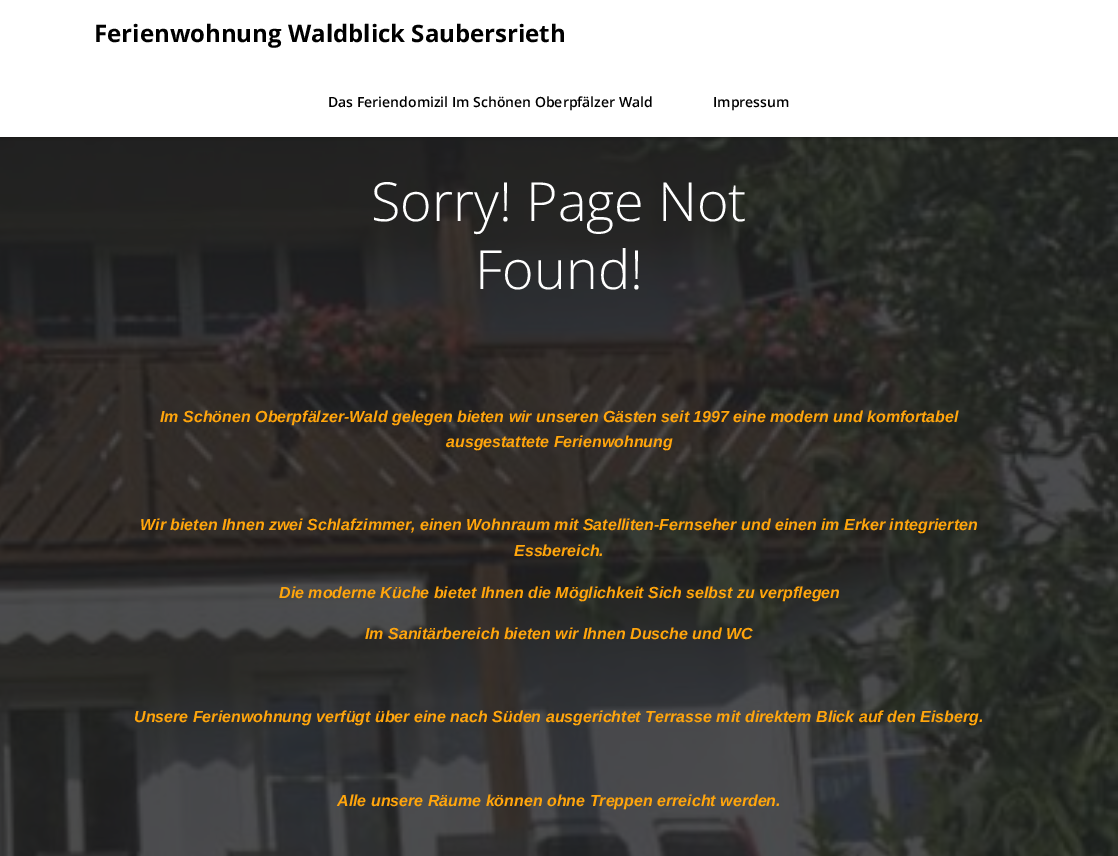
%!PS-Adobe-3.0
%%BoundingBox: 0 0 1118 856
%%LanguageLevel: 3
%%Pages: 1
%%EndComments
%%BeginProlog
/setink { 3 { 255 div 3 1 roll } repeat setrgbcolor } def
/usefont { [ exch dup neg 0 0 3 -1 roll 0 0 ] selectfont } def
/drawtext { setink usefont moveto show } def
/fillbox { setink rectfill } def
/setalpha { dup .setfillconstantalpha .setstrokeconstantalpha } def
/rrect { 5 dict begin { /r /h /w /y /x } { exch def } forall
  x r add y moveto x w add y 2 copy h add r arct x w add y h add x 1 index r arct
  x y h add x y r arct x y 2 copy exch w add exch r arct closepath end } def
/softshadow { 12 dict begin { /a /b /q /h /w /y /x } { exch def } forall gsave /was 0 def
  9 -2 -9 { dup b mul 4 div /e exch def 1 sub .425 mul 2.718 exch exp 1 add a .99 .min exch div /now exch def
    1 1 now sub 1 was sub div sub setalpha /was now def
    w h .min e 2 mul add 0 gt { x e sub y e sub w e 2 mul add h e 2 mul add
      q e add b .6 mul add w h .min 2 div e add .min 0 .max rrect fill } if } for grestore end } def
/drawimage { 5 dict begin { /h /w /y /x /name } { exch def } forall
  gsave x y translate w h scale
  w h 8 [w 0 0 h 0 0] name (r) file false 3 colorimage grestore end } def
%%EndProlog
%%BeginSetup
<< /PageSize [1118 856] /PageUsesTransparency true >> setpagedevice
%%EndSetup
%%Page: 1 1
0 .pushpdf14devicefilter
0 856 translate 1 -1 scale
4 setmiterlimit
0 0 1118 856 255 255 255 fillbox
(assets/img1.rgb) 0 137 1118 719 drawimage
0 0 0 setink
0 0 1118 137 0 2 0.5 softshadow
0 0 1118 137 255 255 255 fillbox
(Ferienwohnung Waldblick Saubersrieth) 94 42 /OpenSans-Bold 24 0 0 0 drawtext
(Das Feriendomizil Im Schönen Oberpfälzer Wald) 328 107 /OpenSans-SemiBold 14 0 0 0 drawtext
(Impressum) 713 107 /OpenSans-SemiBold 14 0 0 0 drawtext
(Sorry! Page Not) 371 221 /OpenSans-Light 54 255 255 255 drawtext
(Found!) 475 289 /OpenSans-Light 54 255 255 255 drawtext
(Im Schönen Oberpfälzer-Wald gelegen bieten wir unseren Gästen seit 1997 eine modern und komfortabel) 160 422 /LiberationSans-BoldItalic 16 255 165 12 drawtext
(ausgestattete Ferienwohnung) 446 447 /LiberationSans-BoldItalic 16 255 165 12 drawtext
(Wir bieten Ihnen zwei Schlafzimmer, einen Wohnraum mit Satelliten-Fernseher und einen im Erker integrierten) 140 530 /LiberationSans-BoldItalic 16 255 165 12 drawtext
(Essbereich.) 514 556 /LiberationSans-BoldItalic 16 255 165 12 drawtext
(Die moderne Küche bietet Ihnen die Möglichkeit Sich selbst zu verpflegen) 279 598 /LiberationSans-BoldItalic 16 255 165 12 drawtext
(Im Sanitärbereich bieten wir Ihnen Dusche und WC) 365 639 /LiberationSans-BoldItalic 16 255 165 12 drawtext
(Unsere Ferienwohnung verfügt über eine nach Süden ausgerichtet Terrasse mit direktem Blick auf den Eisberg.) 134 722 /LiberationSans-BoldItalic 16 255 165 12 drawtext
(Alle unsere Räume können ohne Treppen erreicht werden.) 337 806 /LiberationSans-BoldItalic 16 255 165 12 drawtext
.poppdf14devicefilter showpage
%%EOF
